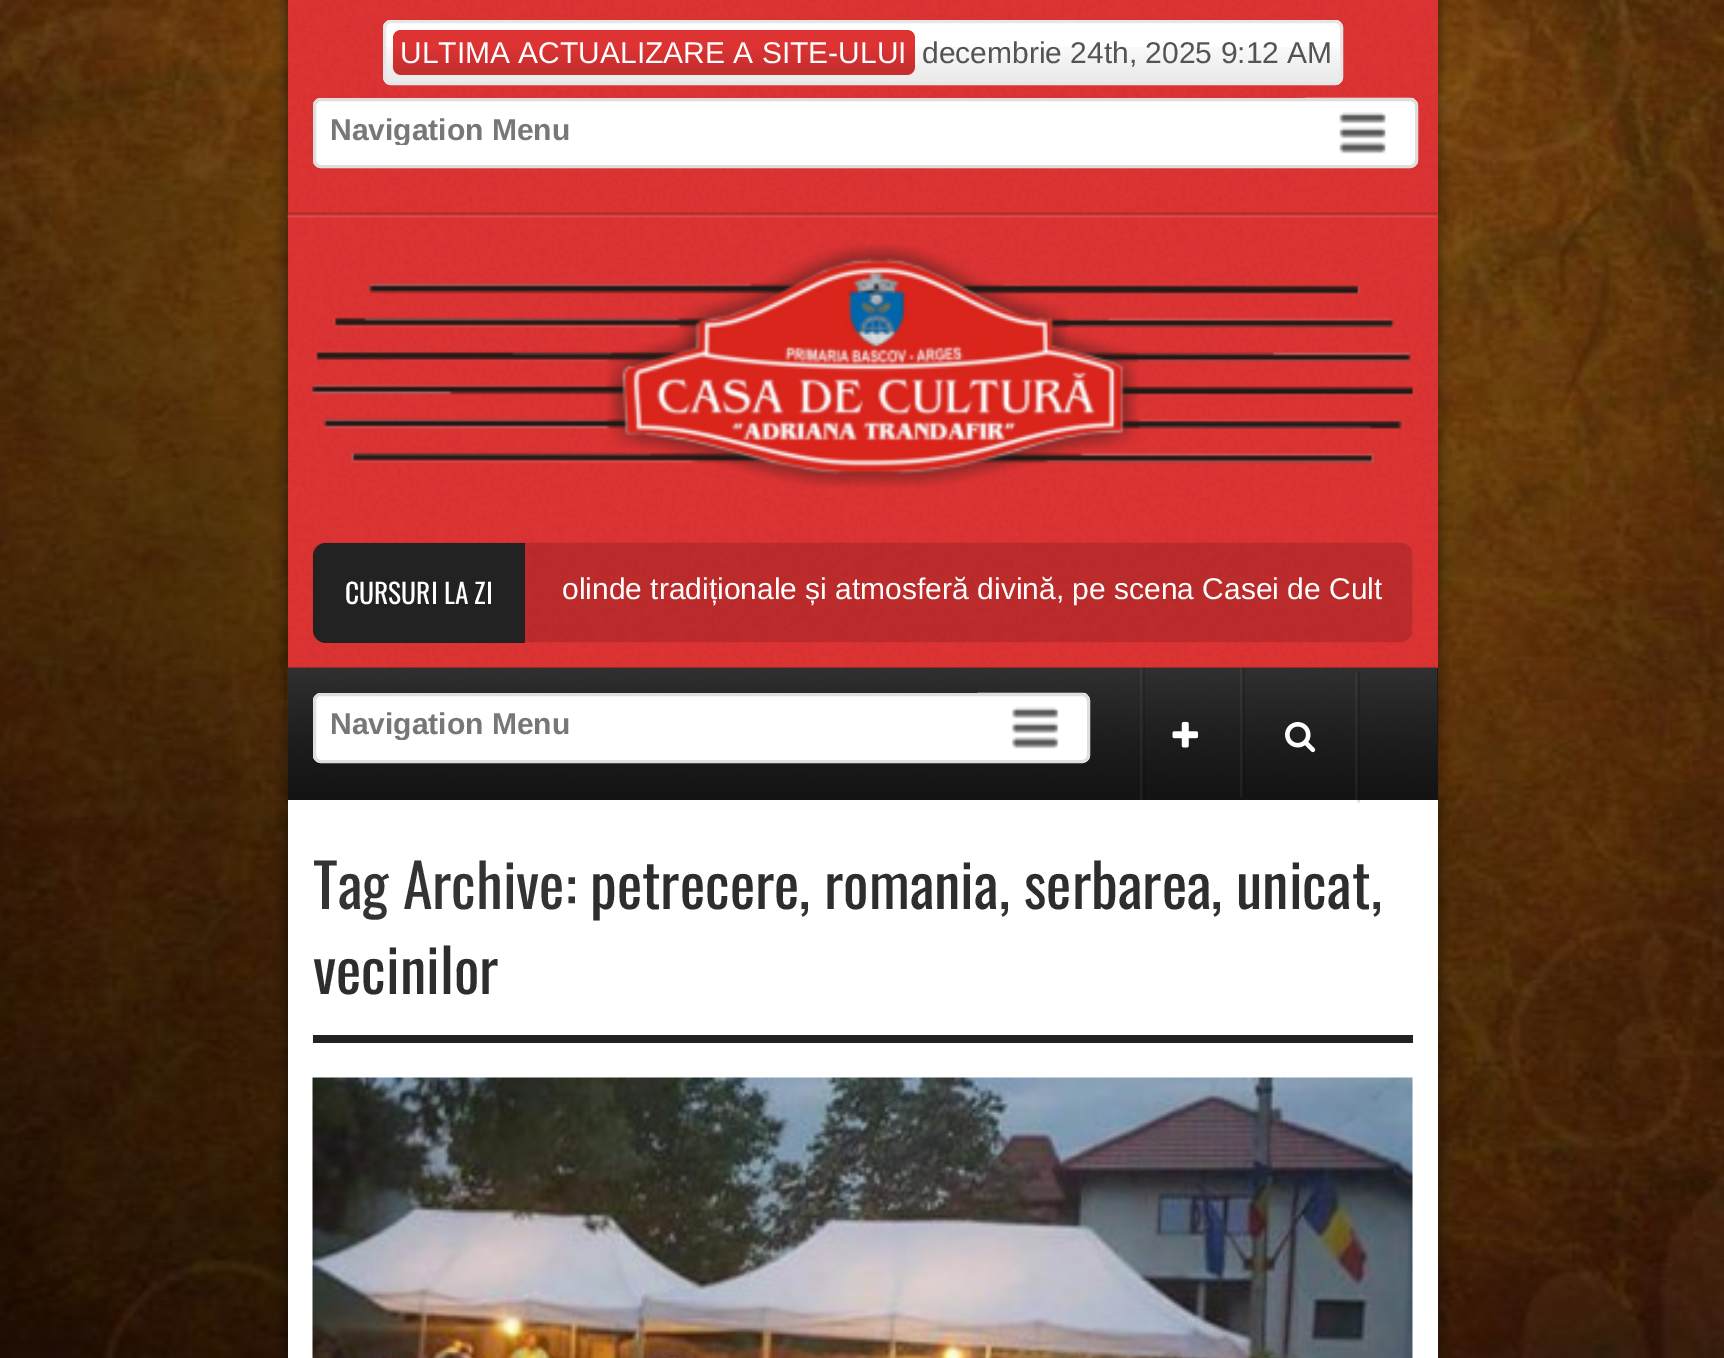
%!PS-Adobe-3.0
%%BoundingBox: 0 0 1724 1358
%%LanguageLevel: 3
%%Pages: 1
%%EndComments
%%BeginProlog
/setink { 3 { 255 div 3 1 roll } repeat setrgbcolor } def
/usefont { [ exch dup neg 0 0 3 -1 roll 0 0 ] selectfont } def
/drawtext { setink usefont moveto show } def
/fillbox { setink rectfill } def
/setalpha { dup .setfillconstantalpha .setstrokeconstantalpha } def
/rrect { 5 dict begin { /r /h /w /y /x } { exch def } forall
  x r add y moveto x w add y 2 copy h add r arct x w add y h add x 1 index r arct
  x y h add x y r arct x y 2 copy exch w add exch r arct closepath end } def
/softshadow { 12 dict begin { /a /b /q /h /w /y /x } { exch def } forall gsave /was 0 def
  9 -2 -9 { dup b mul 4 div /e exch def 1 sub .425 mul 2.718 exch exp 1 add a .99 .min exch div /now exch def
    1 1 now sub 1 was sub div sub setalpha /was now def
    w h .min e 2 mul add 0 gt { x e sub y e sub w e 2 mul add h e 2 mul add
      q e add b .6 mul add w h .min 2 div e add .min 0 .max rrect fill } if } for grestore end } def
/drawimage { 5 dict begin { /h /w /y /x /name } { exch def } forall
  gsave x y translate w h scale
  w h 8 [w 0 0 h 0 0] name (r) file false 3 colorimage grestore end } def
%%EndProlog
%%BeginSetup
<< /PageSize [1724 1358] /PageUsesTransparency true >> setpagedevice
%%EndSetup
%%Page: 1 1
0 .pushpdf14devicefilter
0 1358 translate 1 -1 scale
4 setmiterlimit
0 0 1724 1358 255 255 255 fillbox
(assets/img1.rgb) 0 0 1724 1358 drawimage
0 0 0 setink
285 -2 1155 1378 0 6 0.4 softshadow
288 800 1150 558 255 255 255 fillbox
288 0 1150 668 221 51 51 fillbox
(assets/img2.rgb) 288 0 1149 668 drawimage
(assets/img3.rgb) 287 212 1151 6 drawimage
255 255 255 setink
383 20 960 65 8 rrect fill
(assets/img4.rgb) 383 47 959 36 drawimage
231 231 231 setink
3 setlinewidth
384.5 21.5 957 62 6.5 rrect stroke
221 51 51 setink
393 30 522 45 8 rrect fill
(assets/img5.rgb) 392 49 523 26 drawimage
(ULTIMA ACTUALIZARE A SITE-ULUI) 400 63 /LiberationSans-Regular 30 255 255 255 drawtext
(decembrie 24th, 2025 9:12 AM) 922 63 /LiberationSans-Regular 30 84 84 84 drawtext
255 255 255 setink
313 98 1105 70 8 rrect fill
(assets/img6.rgb) 1305 97 110 71 drawimage
222 222 222 setink
314.5 99.5 1102 67 6.5 rrect stroke
gsave
330 115 1108 30 rectclip
(Navigation Menu) 330 140 /LiberationSans-Bold 30 119 119 119 drawtext
grestore
(assets/img7.rgb) 312 244 1101 244 drawimage
(assets/img8.rgb) 312 542 1101 101 drawimage
34 34 34 setink
326 543 moveto 525 543 lineto 525 643 lineto 326 643 lineto 319 643 313 637 313 630 curveto 313 556 lineto 313 549 319 543 326 543 curveto closepath fill
(CURSURI LA ZI) 345 604 /Oswald-Regular 27.5 255 255 255 drawtext
(olinde tradiționale și atmosferă divină, pe scena Casei de Cult) 562 599 /LiberationSans-Regular 30 255 255 255 drawtext
1437 668 1 132 22 22 21 fillbox
(assets/img9.rgb) 287 667 1151 133 drawimage
255 255 255 setink
313 693 777 70 8 rrect fill
(assets/img10.rgb) 977 692 111 71 drawimage
222 222 222 setink
314.5 694.5 774 67 6.5 rrect stroke
gsave
330 710 843 30 rectclip
(Navigation Menu) 330 734 /LiberationSans-Bold 30 119 119 119 drawtext
grestore
(assets/img11.rgb) 1140 667 5 133 drawimage
(assets/img12.rgb) 1240 667 5 131 drawimage
(assets/img13.rgb) 1172 721 27 27 drawimage
(assets/img14.rgb) 1355 672 5 131 drawimage
(assets/img15.rgb) 1285 722 31 31 drawimage
313 1035 1100 8 34 34 34 fillbox
(Tag Archive:) 313 909 /Oswald-Regular 60 51 51 51 drawtext
(petrecere) 590 909 /Oswald-Regular 60 45 45 45 drawtext
(,) 799 909 /Oswald-Regular 60 51 51 51 drawtext
(romania) 824 909 /Oswald-Regular 60 45 45 45 drawtext
(,) 999 909 /Oswald-Regular 60 51 51 51 drawtext
(serbarea) 1024 909 /Oswald-Regular 60 45 45 45 drawtext
(,) 1211 909 /Oswald-Regular 60 51 51 51 drawtext
(unicat) 1236 909 /Oswald-Regular 60 45 45 45 drawtext
(,) 1371 909 /Oswald-Regular 60 51 51 51 drawtext
(vecinilor) 313 994 /Oswald-Regular 60 45 45 45 drawtext
(assets/img16.rgb) 312 1077 1101 281 drawimage
.poppdf14devicefilter showpage
%%EOF
